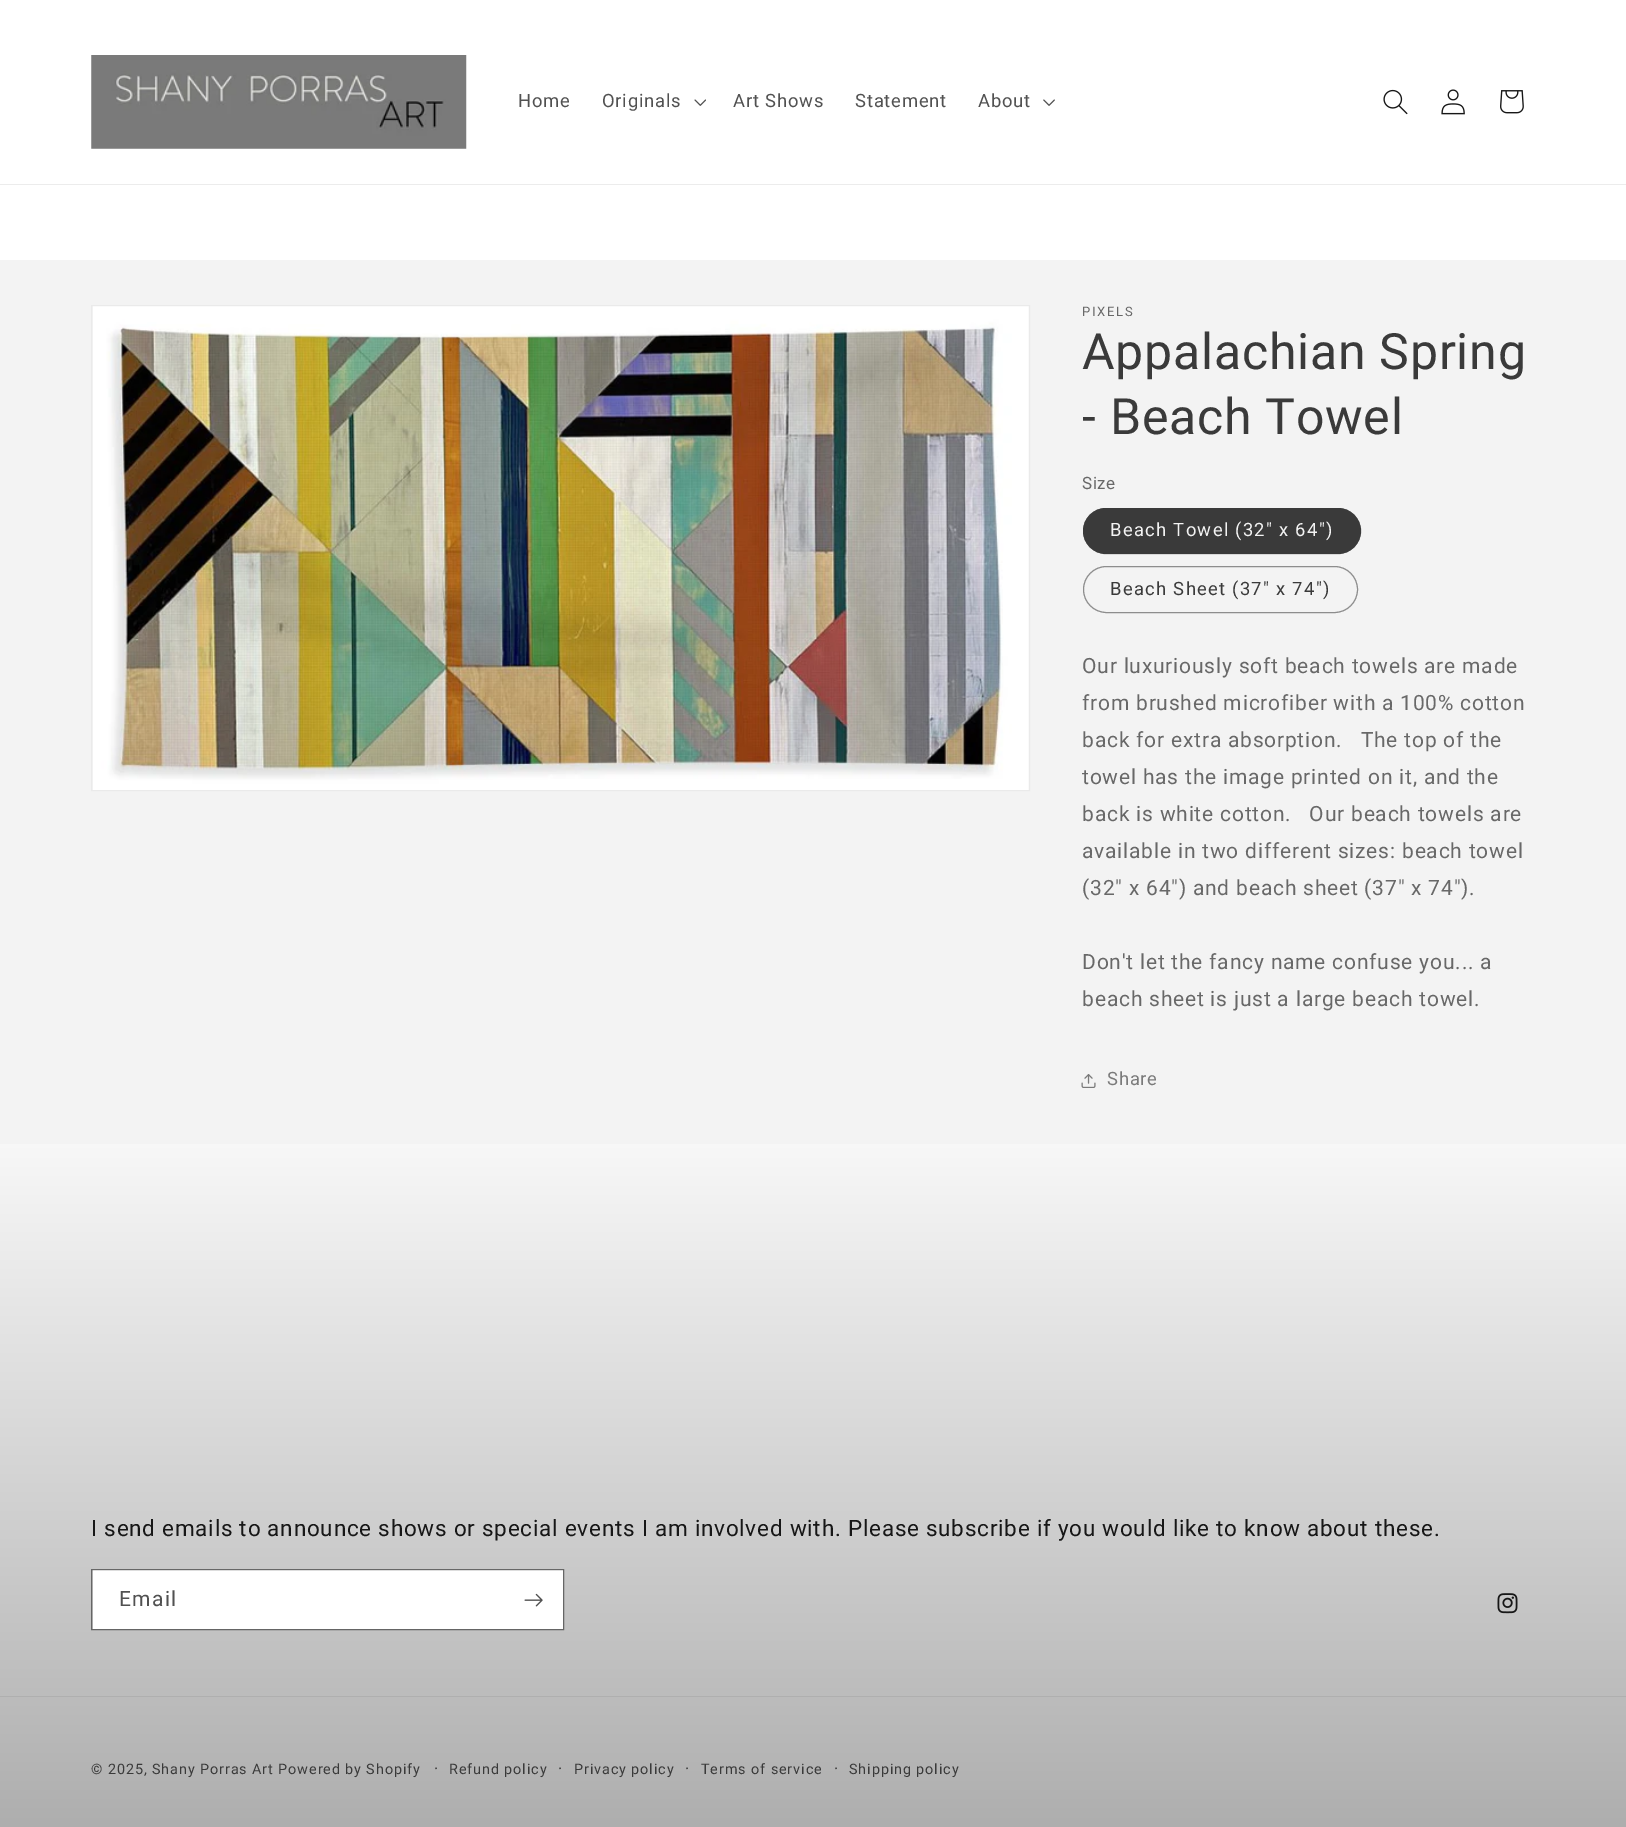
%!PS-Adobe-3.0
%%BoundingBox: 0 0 1626 1827
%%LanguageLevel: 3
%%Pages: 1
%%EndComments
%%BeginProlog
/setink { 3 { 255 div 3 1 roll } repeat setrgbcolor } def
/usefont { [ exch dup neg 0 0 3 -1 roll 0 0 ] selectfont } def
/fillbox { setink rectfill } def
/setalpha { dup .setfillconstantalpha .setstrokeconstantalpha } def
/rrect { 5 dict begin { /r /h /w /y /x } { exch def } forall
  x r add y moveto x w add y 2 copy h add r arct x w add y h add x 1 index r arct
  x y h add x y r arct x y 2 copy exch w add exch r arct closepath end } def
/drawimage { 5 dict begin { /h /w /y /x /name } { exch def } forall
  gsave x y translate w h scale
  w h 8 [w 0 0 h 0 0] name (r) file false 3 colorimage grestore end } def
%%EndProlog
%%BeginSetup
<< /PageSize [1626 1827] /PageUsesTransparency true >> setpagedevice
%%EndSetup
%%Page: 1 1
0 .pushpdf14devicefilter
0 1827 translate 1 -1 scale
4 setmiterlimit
0 0 1626 1827 255 255 255 fillbox
gsave 0 1102 moveto 1626 1102 lineto 1626 1827 lineto 0 1827 lineto closepath clip newpath
<< /ShadingType 2 /ColorSpace /DeviceRGB /Coords [813 0 813 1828] /Extend [true true] /Function << /FunctionType 3 /Domain [0 1] /Functions [<< /FunctionType 2 /Domain [0 1] /C0 [1 1 1] /C1 [1 1 1] /N 1 >> << /FunctionType 2 /Domain [0 1] /C0 [1 1 1] /C1 [0.682 0.682 0.682] /N 1 >>] /Bounds [0.59] /Encode [0 1 0 1] >> >> shfill grestore
0 184 1626 1 236 236 236 fillbox
(assets/img1.rgb) 91 55 376 94 drawimage
/Roboto-Regular 18.4 usefont
81 81 81 setink
518 107 moveto 0.8 0 (Home) ashow
602 107 moveto 0.8 0 (Originals) ashow
(assets/img2.rgb) 694 99 12 7 drawimage
733 107 moveto 0.8 0 (Art Shows) ashow
855 107 moveto 0.8 0 (Statement) ashow
978 107 moveto 0.8 0 (About) ashow
(assets/img3.rgb) 1043 99 12 7 drawimage
(assets/img4.rgb) 1383 89 25 26 drawimage
(assets/img5.rgb) 1441 89 24 26 drawimage
(assets/img6.rgb) 1500 90 24 24 drawimage
0 260 1626 884 243 243 243 fillbox
234 234 234 setink
91.5 305.5 938 485 rectstroke
(assets/img7.rgb) 93 306 936 484 drawimage
/Roboto-Regular 13 usefont
104 104 104 setink
1082 316 moveto 1.75 0 (PIXELS) ashow
/Roboto-Regular 50 usefont
58 58 58 setink
1082 369 moveto 0.75 0 (Appalachian Spring) ashow
1082 434 moveto 0.75 0 (- Beach Towel) ashow
/Roboto-Regular 17 usefont
104 104 104 setink
1082 489 moveto 0.5 0 (Size) ashow
58 58 58 setink
1083 508 278 46 23 rrect fill
0.55 setalpha
1083.5 508.5 277 45 22.5 rrect stroke
/Roboto-Regular 18.4 usefont
1 setalpha
243 243 243 setink
1110 536 moveto 1.3 0 (Beach Towel \(32" x 64"\)) ashow
141 141 141 setink
1083.5 566.5 274 46 23 rrect stroke
58 58 58 setink
1110 595 moveto 1.3 0 (Beach Sheet \(37" x 74"\)) ashow
/Roboto-Regular 21 usefont
104 104 104 setink
1082 673 moveto 0.8 0 (Our luxuriously soft beach towels are made) ashow
1082 710 moveto 0.8 0 (from brushed microfiber with a 100% cotton) ashow
1082 747 moveto 0.8 0 (back for extra absorption.   The top of the) ashow
1082 784 moveto 0.8 0 (towel has the image printed on it, and the) ashow
1082 821 moveto 0.8 0 (back is white cotton.   Our beach towels are) ashow
1082 858 moveto 0.8 0 (available in two different sizes: beach towel) ashow
1082 895 moveto 0.8 0 (\(32" x 64"\) and beach sheet \(37" x 74"\).) ashow
1082 969 moveto 0.8 0 (Don't let the fancy name confuse you... a) ashow
1082 1006 moveto 0.8 0 (beach sheet is just a large beach towel.) ashow
(assets/img8.rgb) 1081 1074 15 14 drawimage
/Roboto-Regular 18.4 usefont
122 122 122 setink
1107 1085 moveto 0.8 0 (Share) ashow
/Roboto-Regular 22.5 usefont
23 23 23 setink
91 1536 moveto 0.75 0 (I send emails to announce shows or special events I am involved with. Please subscribe if you would like to know about these.) ashow
93 1570 470 59 255 255 255 fillbox
0.55 setalpha
23 23 23 setink
91.5 1569.5 472 60 rectstroke
/Roboto-Regular 21 usefont
1 setalpha
81 81 81 setink
119 1606 moveto 1.3 0 (Email) ashow
(assets/img9.rgb) 524 1593 19 14 drawimage
(assets/img10.rgb) 1497 1593 21 21 drawimage
0 1696 1626 1 175 175 175 fillbox
/Roboto-Regular 14.4 usefont
58 58 58 setink
91 1774 moveto 0.9 0 (© 2025, Shany Porras Art Powered by Shopify) ashow
/Roboto-Regular 16 usefont
434 1774 moveto 0.9 0 (·) ashow
/Roboto-Regular 14.4 usefont
449 1774 moveto 0.9 0 (Refund policy) ashow
/Roboto-Regular 16 usefont
558 1774 moveto 0.9 0 (·) ashow
/Roboto-Regular 14.4 usefont
574 1774 moveto 0.9 0 (Privacy policy) ashow
/Roboto-Regular 16 usefont
685 1774 moveto 0.9 0 (·) ashow
/Roboto-Regular 14.4 usefont
701 1774 moveto 0.9 0 (Terms of service) ashow
/Roboto-Regular 16 usefont
834 1774 moveto 0.9 0 (·) ashow
/Roboto-Regular 14.4 usefont
849 1774 moveto 0.9 0 (Shipping policy) ashow
.poppdf14devicefilter showpage
%%EOF
